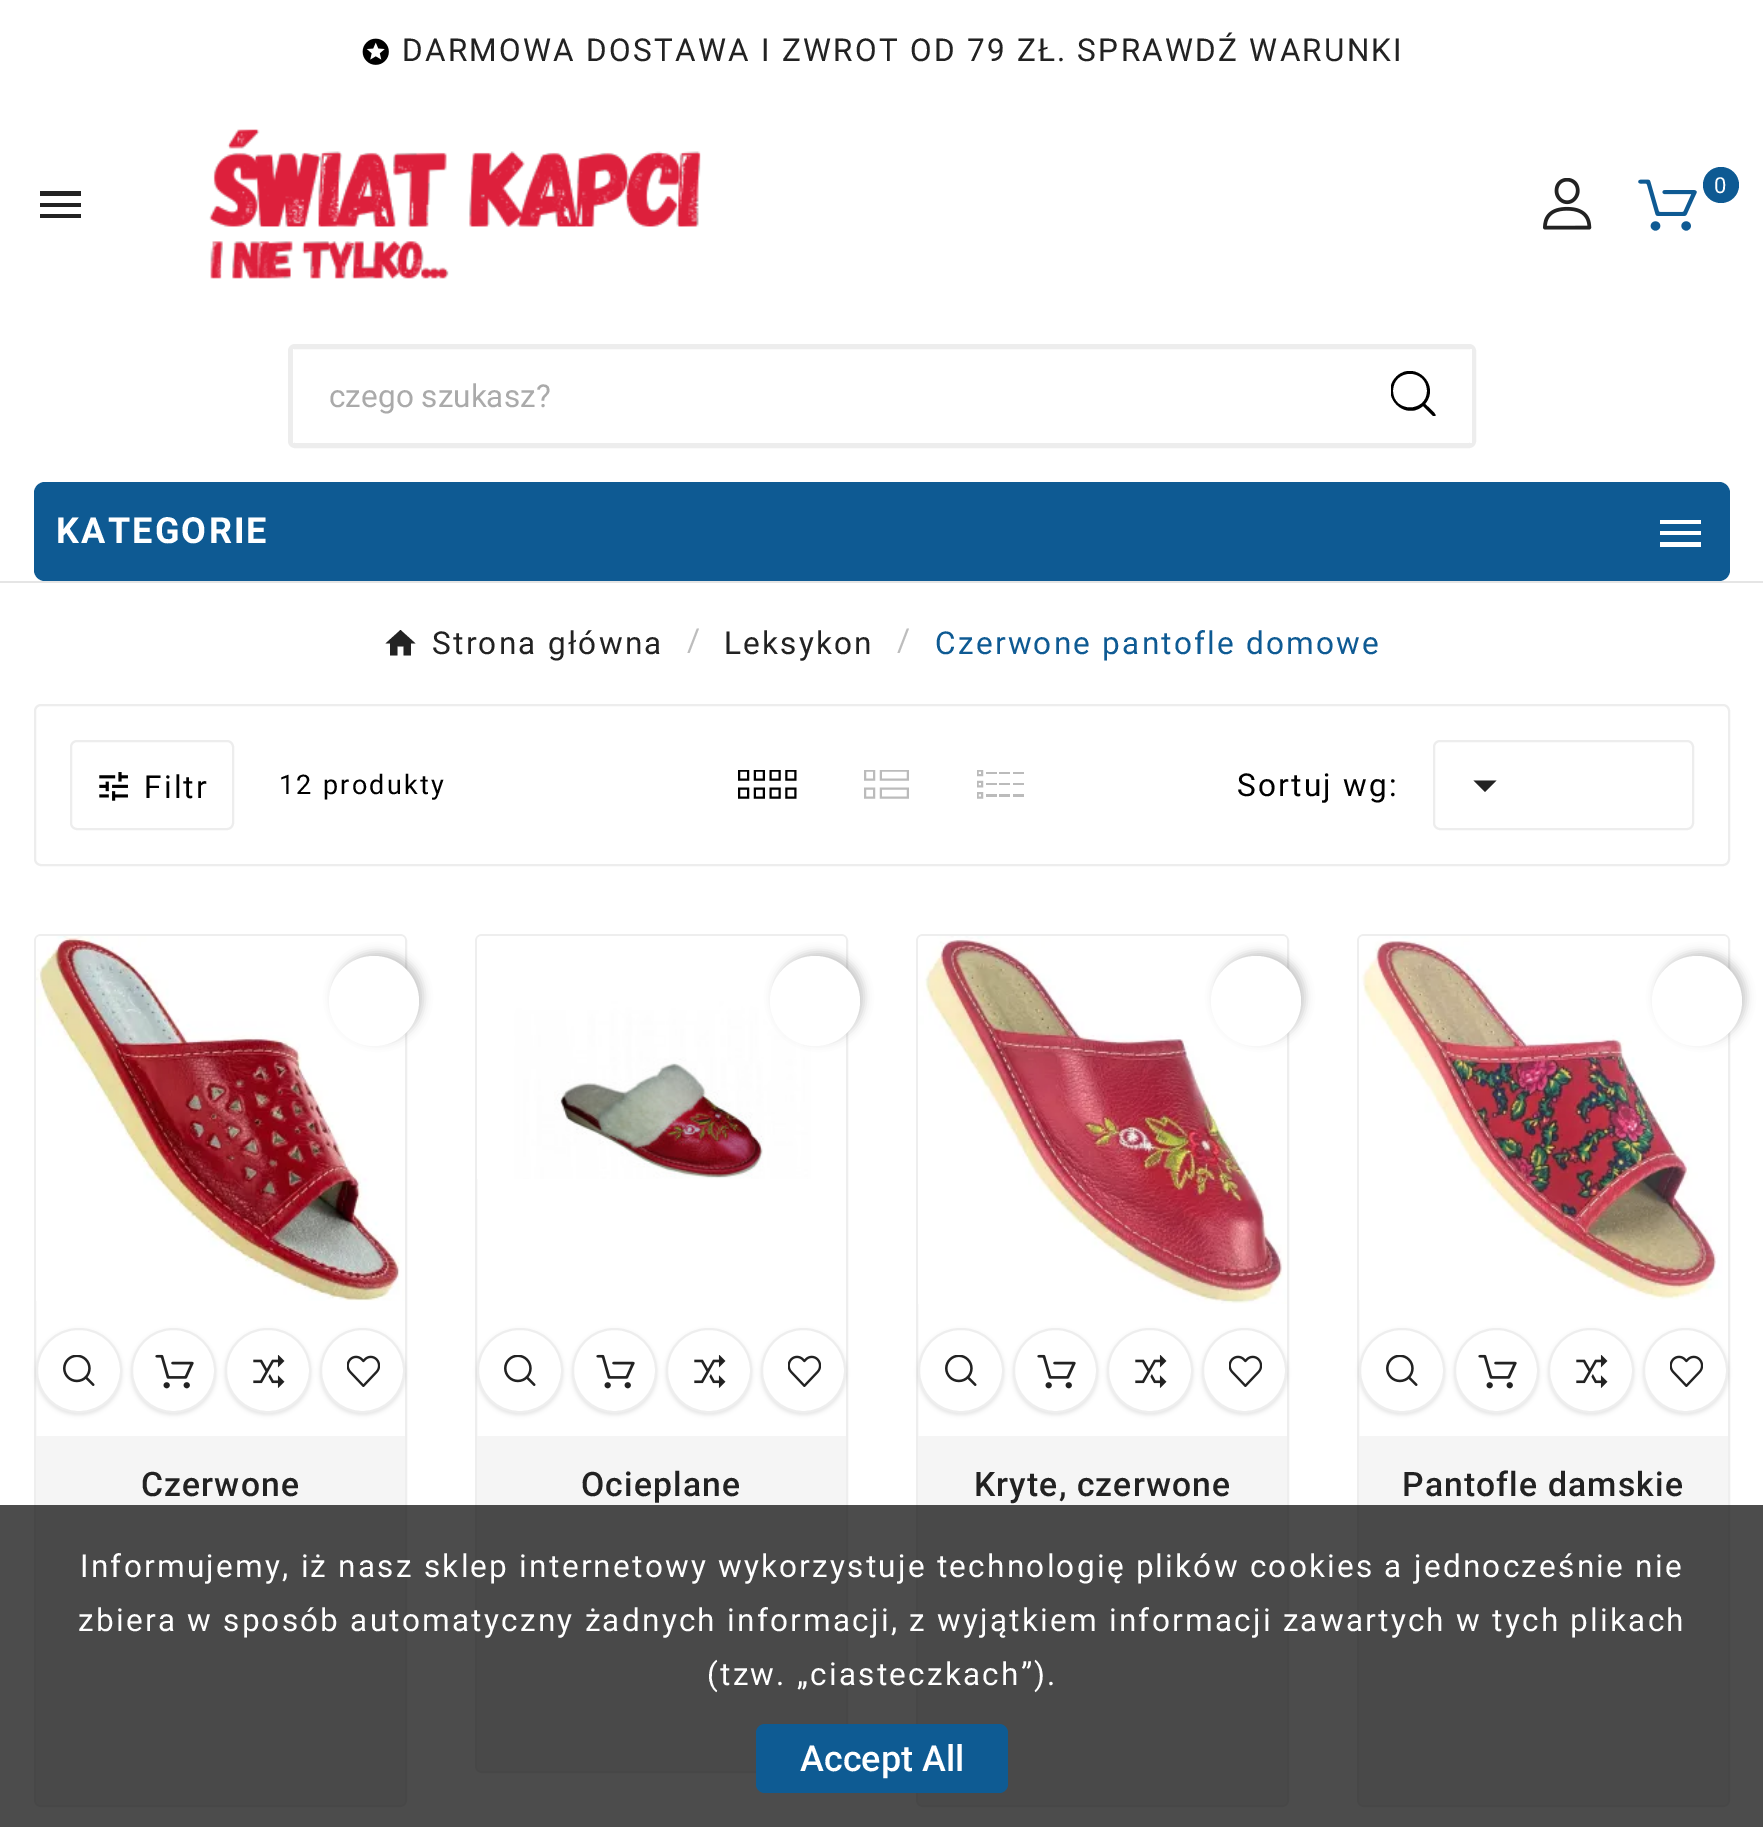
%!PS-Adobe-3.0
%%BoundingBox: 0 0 1763 1827
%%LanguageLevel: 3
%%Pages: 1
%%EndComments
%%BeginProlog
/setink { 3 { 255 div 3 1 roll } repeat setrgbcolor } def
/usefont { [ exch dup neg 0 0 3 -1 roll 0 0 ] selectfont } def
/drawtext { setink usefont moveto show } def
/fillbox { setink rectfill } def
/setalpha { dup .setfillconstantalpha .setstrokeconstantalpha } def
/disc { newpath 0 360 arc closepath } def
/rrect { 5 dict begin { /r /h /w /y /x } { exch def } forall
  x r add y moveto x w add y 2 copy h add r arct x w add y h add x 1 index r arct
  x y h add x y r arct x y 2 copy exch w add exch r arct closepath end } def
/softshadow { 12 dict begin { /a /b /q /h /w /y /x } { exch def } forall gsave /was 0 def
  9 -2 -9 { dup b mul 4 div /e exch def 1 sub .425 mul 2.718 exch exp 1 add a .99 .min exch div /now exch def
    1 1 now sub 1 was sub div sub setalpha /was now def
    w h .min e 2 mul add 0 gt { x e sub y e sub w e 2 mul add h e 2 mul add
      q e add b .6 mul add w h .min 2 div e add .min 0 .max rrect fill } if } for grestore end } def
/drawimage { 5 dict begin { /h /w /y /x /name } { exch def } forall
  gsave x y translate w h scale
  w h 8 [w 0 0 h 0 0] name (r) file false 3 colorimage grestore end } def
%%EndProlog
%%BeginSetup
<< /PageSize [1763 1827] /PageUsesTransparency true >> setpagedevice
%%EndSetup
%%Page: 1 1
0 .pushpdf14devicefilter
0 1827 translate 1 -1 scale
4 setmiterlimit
0 0 1763 1827 255 255 255 fillbox
0 581 1763 2 229 229 229 fillbox
(assets/img1.rgb) 362 38 27 27 drawimage
/Roboto-Regular 31.5 usefont
34 34 34 setink
402 61 moveto 2.25 0 (DARMOWA DOSTAWA I ZWROT OD 79 ZŁ. SPRAWDŹ WARUNKI) ashow
(assets/img2.rgb) 209 129 492 150 drawimage
(assets/img3.rgb) 1543 178 49 52 drawimage
(assets/img4.rgb) 1638 179 59 52 drawimage
14 90 147 setink
1721 185 18 disc fill
/Roboto-Regular 22 usefont
255 255 255 setink
1714 193 moveto 2.25 0 (0) ashow
34 34 34 setink
40 191 moveto 81 191 lineto 81 196 lineto 40 196 lineto closepath 40 207 moveto 40 203 lineto 81 203 lineto 81 207 lineto closepath 40 218 moveto 40 214 lineto 81 214 lineto 81 218 lineto closepath fill
237 237 237 setink
5 setlinewidth
290.5 346.5 1183 99 4.5 rrect stroke
293 349 1 94 255 255 255 fillbox
(czego szukasz?) 329 407 /Roboto-Regular 31.5 170 170 170 drawtext
1470 349 2 94 255 255 255 fillbox
gsave
1391 371 45 45 rectclip
0 0 0 setink
1425 404 moveto 1427 406 1438 415 1435 416 curveto 1434 416 1433 416 1433 416 curveto 1423 406 lineto 1404 422 1378 394 1397 376 curveto 1415 360 1441 385 1425 404 curveto closepath 1427 391 moveto 1427 368 1393 368 1393 391 curveto 1393 413 1427 413 1427 391 curveto closepath fill
grestore
14 90 147 setink
34 482 1696 99 11 rrect fill
/Roboto-Bold 36 usefont
255 255 255 setink
56 543 moveto 2.25 0 (KATEGORIE) ashow
1660 520 moveto 1701 520 lineto 1701 524 lineto 1660 524 lineto closepath 1660 535 moveto 1660 531 lineto 1701 531 lineto 1701 535 lineto closepath 1660 547 moveto 1660 542 lineto 1701 542 lineto 1701 547 lineto closepath fill
/Roboto-Regular 31.5 usefont
34 34 34 setink
432 654 moveto 2.25 0 (Strona główna) ashow
35 35 35 setink
397.5 655.5 moveto 390 655.5 lineto 390 643.5 lineto 385.5 643.5 lineto 400.5 630 lineto 415.5 643.5 lineto 411 643.5 lineto 411 655.5 lineto 403.5 655.5 lineto 403.5 646.5 lineto 397.5 646.5 lineto closepath fill
189 189 189 setink
687 651 moveto 2.25 0 (/) ashow
34 34 34 setink
724 654 moveto 2.25 0 (Leksykon) ashow
189 189 189 setink
897 651 moveto 2.25 0 (/) ashow
14 90 147 setink
935 654 moveto 2.25 0 (Czerwone pantofle domowe) ashow
237 237 237 setink
2 setlinewidth
35 705 1694 160 6 rrect stroke
71 741 162 88 6 rrect stroke
(assets/img5.rgb) 99 772 29 29 drawimage
0 0 0 setink
144 798 moveto 2.25 0 (Filtr) ashow
/Roboto-Regular 27 usefont
279 794 moveto 2.25 0 (12 produkty) ashow
(assets/img6.rgb) 738 770 59 29 drawimage
(assets/img7.rgb) 864 770 45 29 drawimage
(assets/img8.rgb) 977 770 47 29 drawimage
/Roboto-Regular 31.5 usefont
1237 796 moveto 2.25 0 (Sortuj wg:) ashow
237 237 237 setink
1434 741 259 88 6 rrect stroke
35 35 35 setink
1473.5 780.5 moveto 1496.5 780.5 lineto 1485 792 lineto closepath fill
238 238 238 setink
35 935 371 871 6 rrect stroke
(assets/img9.rgb) 36 936 369 365 drawimage
0 0 0 setink
333 952 90 90 45 4.5 0.2 softshadow
255 255 255 setink
374 1001 45 disc fill
gsave
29 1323 moveto 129 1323 lineto 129 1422 lineto 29 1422 lineto closepath 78.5 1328 moveto 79.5 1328 lineto 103 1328 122 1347 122 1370.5 curveto 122 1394 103 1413 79.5 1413 curveto 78.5 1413 lineto 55 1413 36 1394 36 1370.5 curveto 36 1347 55 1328 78.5 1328 curveto closepath eoclip newpath
0 0 0 setink
36 1330 86 85 42.5 2 0.1 softshadow
grestore
37 1329 84 83 41.5 rrect gsave fill grestore
238 238 238 setink
stroke
(assets/img10.rgb) 63 1355 32 31 drawimage
0 0 0 setink
131 1330 85 85 42.5 2 0.1 softshadow
255 255 255 setink
173.5 1370.5 41.5 disc gsave fill grestore
238 238 238 setink
stroke
(assets/img11.rgb) 155 1354 39 35 drawimage
0 0 0 setink
225 1330 86 85 42.5 2 0.1 softshadow
255 255 255 setink
226 1329 84 83 41.5 rrect gsave fill grestore
238 238 238 setink
stroke
(assets/img12.rgb) 253 1355 32 33 drawimage
gsave
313 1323 moveto 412 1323 lineto 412 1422 lineto 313 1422 lineto closepath 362.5 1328 moveto 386 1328 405 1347 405 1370.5 curveto 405 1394 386 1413 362.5 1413 curveto 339 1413 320 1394 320 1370.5 curveto 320 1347 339 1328 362.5 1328 curveto closepath eoclip newpath
0 0 0 setink
320 1330 85 85 42.5 2 0.1 softshadow
grestore
255 255 255 setink
362.5 1370.5 41.5 disc gsave fill grestore
238 238 238 setink
stroke
(assets/img13.rgb) 347 1355 33 32 drawimage
245 245 245 setink
36 1436 moveto 405 1436 lineto 405 1800 lineto 405 1803 403 1805 400 1805 curveto 41 1805 lineto 38 1805 36 1803 36 1800 curveto closepath fill
/Roboto-Medium 33.75 usefont
34 34 34 setink
141 1496 moveto 1.1 0 (Czerwone) ashow
238 238 238 setink
476 935 371 837 6 rrect stroke
(assets/img14.rgb) 477 936 369 243 drawimage
0 0 0 setink
774 952 90 90 45 4.5 0.2 softshadow
255 255 255 setink
815 1001 45 disc fill
gsave
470 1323 moveto 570 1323 lineto 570 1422 lineto 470 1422 lineto closepath 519.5 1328 moveto 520.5 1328 lineto 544 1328 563 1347 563 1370.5 curveto 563 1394 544 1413 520.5 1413 curveto 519.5 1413 lineto 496 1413 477 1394 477 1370.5 curveto 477 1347 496 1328 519.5 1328 curveto closepath eoclip newpath
0 0 0 setink
477 1330 86 85 42.5 2 0.1 softshadow
grestore
478 1329 84 83 41.5 rrect gsave fill grestore
238 238 238 setink
stroke
(assets/img10.rgb) 504 1355 32 31 drawimage
0 0 0 setink
572 1330 85 85 42.5 2 0.1 softshadow
255 255 255 setink
614.5 1370.5 41.5 disc gsave fill grestore
238 238 238 setink
stroke
(assets/img11.rgb) 596 1354 39 35 drawimage
0 0 0 setink
666 1330 86 85 42.5 2 0.1 softshadow
255 255 255 setink
667 1329 84 83 41.5 rrect gsave fill grestore
238 238 238 setink
stroke
(assets/img12.rgb) 694 1355 32 33 drawimage
gsave
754 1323 moveto 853 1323 lineto 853 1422 lineto 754 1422 lineto closepath 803.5 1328 moveto 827 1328 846 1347 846 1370.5 curveto 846 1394 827 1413 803.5 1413 curveto 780 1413 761 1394 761 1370.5 curveto 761 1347 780 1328 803.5 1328 curveto closepath eoclip newpath
0 0 0 setink
761 1330 85 85 42.5 2 0.1 softshadow
grestore
255 255 255 setink
803.5 1370.5 41.5 disc gsave fill grestore
238 238 238 setink
stroke
(assets/img13.rgb) 788 1355 33 32 drawimage
245 245 245 setink
477 1436 moveto 846 1436 lineto 846 1766 lineto 846 1769 844 1771 841 1771 curveto 482 1771 lineto 479 1771 477 1769 477 1766 curveto closepath fill
34 34 34 setink
581 1496 moveto 1.1 0 (Ocieplane) ashow
238 238 238 setink
917 935 371 871 6 rrect stroke
(assets/img15.rgb) 918 936 369 368 drawimage
0 0 0 setink
1215 952 90 90 45 4.5 0.2 softshadow
255 255 255 setink
1256 1001 45 disc fill
gsave
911 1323 moveto 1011 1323 lineto 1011 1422 lineto 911 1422 lineto closepath 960.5 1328 moveto 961.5 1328 lineto 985 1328 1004 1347 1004 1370.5 curveto 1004 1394 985 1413 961.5 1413 curveto 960.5 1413 lineto 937 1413 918 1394 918 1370.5 curveto 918 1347 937 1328 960.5 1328 curveto closepath eoclip newpath
0 0 0 setink
918 1330 86 85 42.5 2 0.1 softshadow
grestore
919 1329 84 83 41.5 rrect gsave fill grestore
238 238 238 setink
stroke
(assets/img10.rgb) 945 1355 32 31 drawimage
0 0 0 setink
1013 1330 85 85 42.5 2 0.1 softshadow
255 255 255 setink
1055.5 1370.5 41.5 disc gsave fill grestore
238 238 238 setink
stroke
(assets/img11.rgb) 1037 1354 39 35 drawimage
0 0 0 setink
1107 1330 86 85 42.5 2 0.1 softshadow
255 255 255 setink
1108 1329 84 83 41.5 rrect gsave fill grestore
238 238 238 setink
stroke
(assets/img12.rgb) 1135 1355 32 33 drawimage
gsave
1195 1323 moveto 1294 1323 lineto 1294 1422 lineto 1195 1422 lineto closepath 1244.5 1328 moveto 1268 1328 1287 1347 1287 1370.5 curveto 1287 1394 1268 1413 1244.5 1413 curveto 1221 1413 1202 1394 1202 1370.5 curveto 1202 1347 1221 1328 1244.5 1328 curveto closepath eoclip newpath
0 0 0 setink
1202 1330 85 85 42.5 2 0.1 softshadow
grestore
255 255 255 setink
1244.5 1370.5 41.5 disc gsave fill grestore
238 238 238 setink
stroke
(assets/img13.rgb) 1229 1355 33 32 drawimage
245 245 245 setink
918 1436 moveto 1287 1436 lineto 1287 1800 lineto 1287 1803 1285 1805 1282 1805 curveto 923 1805 lineto 920 1805 918 1803 918 1800 curveto closepath fill
34 34 34 setink
974 1496 moveto 1.1 0 (Kryte, czerwone) ashow
238 238 238 setink
1358 935 371 871 6 rrect stroke
(assets/img16.rgb) 1359 936 369 364 drawimage
0 0 0 setink
1656 952 90 90 45 4.5 0.2 softshadow
255 255 255 setink
1697 1001 45 disc fill
gsave
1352 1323 moveto 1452 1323 lineto 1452 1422 lineto 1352 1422 lineto closepath 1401.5 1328 moveto 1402.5 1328 lineto 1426 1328 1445 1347 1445 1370.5 curveto 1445 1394 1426 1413 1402.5 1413 curveto 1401.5 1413 lineto 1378 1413 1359 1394 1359 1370.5 curveto 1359 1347 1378 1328 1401.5 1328 curveto closepath eoclip newpath
0 0 0 setink
1359 1330 86 85 42.5 2 0.1 softshadow
grestore
1360 1329 84 83 41.5 rrect gsave fill grestore
238 238 238 setink
stroke
(assets/img10.rgb) 1386 1355 32 31 drawimage
0 0 0 setink
1454 1330 85 85 42.5 2 0.1 softshadow
255 255 255 setink
1496.5 1370.5 41.5 disc gsave fill grestore
238 238 238 setink
stroke
(assets/img11.rgb) 1478 1354 39 35 drawimage
0 0 0 setink
1548 1330 86 85 42.5 2 0.1 softshadow
255 255 255 setink
1549 1329 84 83 41.5 rrect gsave fill grestore
238 238 238 setink
stroke
(assets/img12.rgb) 1576 1355 32 33 drawimage
gsave
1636 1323 moveto 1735 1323 lineto 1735 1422 lineto 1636 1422 lineto closepath 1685.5 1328 moveto 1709 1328 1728 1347 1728 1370.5 curveto 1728 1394 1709 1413 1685.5 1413 curveto 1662 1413 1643 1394 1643 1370.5 curveto 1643 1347 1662 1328 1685.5 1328 curveto closepath eoclip newpath
0 0 0 setink
1643 1330 85 85 42.5 2 0.1 softshadow
grestore
255 255 255 setink
1685.5 1370.5 41.5 disc gsave fill grestore
238 238 238 setink
stroke
(assets/img13.rgb) 1670 1355 33 32 drawimage
245 245 245 setink
1359 1436 moveto 1728 1436 lineto 1728 1800 lineto 1728 1803 1726 1805 1723 1805 curveto 1364 1805 lineto 1361 1805 1359 1803 1359 1800 curveto closepath fill
34 34 34 setink
1402 1496 moveto 1.1 0 (Pantofle damskie) ashow
0.7 setalpha
0 1505 1763 322 0 0 0 fillbox
/Roboto-Regular 31.5 usefont
1 setalpha
255 255 255 setink
80 1577 moveto 2.25 0 (Informujemy, iż nasz sklep internetowy wykorzystuje technologię plików cookies a jednocześnie nie) ashow
78 1631 moveto 2.25 0 (zbiera w sposób automatyczny żadnych informacji, z wyjątkiem informacji zawartych w tych plikach) ashow
707 1685 moveto 2.25 0 (\(tzw. „ciasteczkach”\).) ashow
14 91 147 setink
756 1724 252 69 9 rrect fill
(Accept All) 800 1771 /Roboto-Medium 36 255 255 255 drawtext
.poppdf14devicefilter showpage
%%EOF
